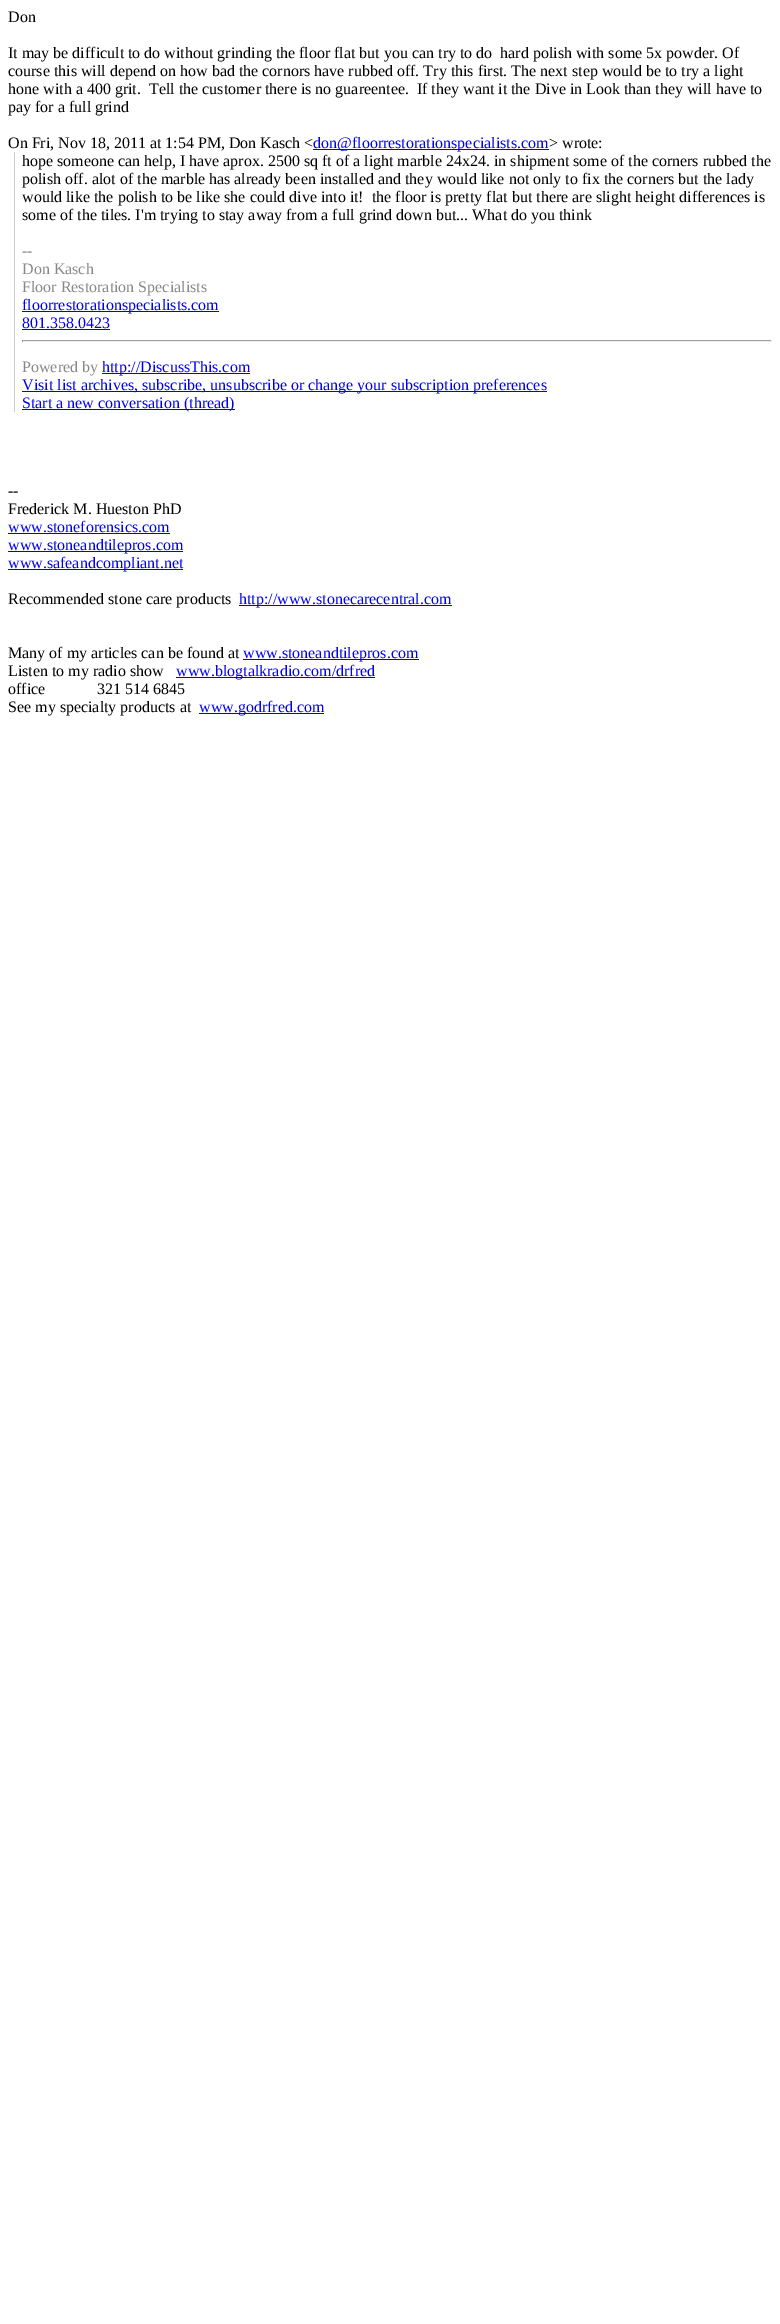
%!PS-Adobe-3.0
%%BoundingBox: 0 0 780 2324
%%LanguageLevel: 3
%%Pages: 1
%%EndComments
%%BeginProlog
/setink { 3 { 255 div 3 1 roll } repeat setrgbcolor } def
/usefont { [ exch dup neg 0 0 3 -1 roll 0 0 ] selectfont } def
/drawtext { setink usefont moveto show } def
/fillbox { setink rectfill } def
%%EndProlog
%%BeginSetup
<< /PageSize [780 2324] >> setpagedevice
%%EndSetup
%%Page: 1 1
0 2324 translate 1 -1 scale
4 setmiterlimit
0 0 780 2324 255 255 255 fillbox
(Don) 8 22 /LiberationSerif-Regular 16 0 0 0 drawtext
(It may be difficult to do without grinding the floor flat but you can try to do  hard polish with some 5x powder. Of) 8 58 /LiberationSerif-Regular 16 0 0 0 drawtext
(course this will depend on how bad the cornors have rubbed off. Try this first. The next step would be to try a light) 8 76 /LiberationSerif-Regular 16 0 0 0 drawtext
(hone with a 400 grit.  Tell the customer there is no guareentee.  If they want it the Dive in Look than they will have to) 8 94 /LiberationSerif-Regular 16 0 0 0 drawtext
(pay for a full grind) 8 112 /LiberationSerif-Regular 16 0 0 0 drawtext
(On Fri, Nov 18, 2011 at 1:54 PM, Don Kasch <) 8 148 /LiberationSerif-Regular 16 0 0 0 drawtext
313 149 236 1 0 0 238 fillbox
(don@floorrestorationspecialists.com) 313 148 /LiberationSerif-Regular 16 0 0 238 drawtext
(> wrote:) 549 148 /LiberationSerif-Regular 16 0 0 0 drawtext
14 152 1 260 204 204 204 fillbox
(hope someone can help, I have aprox. 2500 sq ft of a light marble 24x24. in shipment some of the corners rubbed the) 22 166 /LiberationSerif-Regular 16 0 0 0 drawtext
(polish off. alot of the marble has already been installed and they would like not only to fix the corners but the lady) 22 184 /LiberationSerif-Regular 16 0 0 0 drawtext
(would like the polish to be like she could dive into it!  the floor is pretty flat but there are slight height differences is) 22 202 /LiberationSerif-Regular 16 0 0 0 drawtext
(some of the tiles. I'm trying to stay away from a full grind down but... What do you think) 22 220 /LiberationSerif-Regular 16 0 0 0 drawtext
(--) 22 256 /LiberationSerif-Regular 16 136 136 136 drawtext
(Don Kasch) 22 274 /LiberationSerif-Regular 16 136 136 136 drawtext
(Floor Restoration Specialists) 22 292 /LiberationSerif-Regular 16 136 136 136 drawtext
22 311 197 1 0 0 238 fillbox
(floorrestorationspecialists.com) 22 310 /LiberationSerif-Regular 16 0 0 238 drawtext
(801.358.0423) 22 328 /LiberationSerif-Regular 16 0 0 238 drawtext
22 329 88 1 0 0 238 fillbox
22 340 750 1 159 159 159 fillbox
771 340 1 2 238 238 238 fillbox
22 341 750 1 238 238 238 fillbox
22 340 1 2 159 159 159 fillbox
(Powered by) 22 372 /LiberationSerif-Regular 16 136 136 136 drawtext
102 373 148 1 0 0 238 fillbox
(http://DiscussThis.com) 102 372 /LiberationSerif-Regular 16 0 0 238 drawtext
22 391 525 1 0 0 238 fillbox
(Visit list archives, subscribe, unsubscribe or change your subscription preferences) 22 390 /LiberationSerif-Regular 16 0 0 238 drawtext
22 409 213 1 0 0 238 fillbox
(Start a new conversation \(thread\)) 22 408 /LiberationSerif-Regular 16 0 0 238 drawtext
(--) 8 496 /LiberationSerif-Regular 16 0 0 0 drawtext
(Frederick M. Hueston PhD) 8 514 /LiberationSerif-Regular 16 0 0 0 drawtext
(www.stoneforensics.com) 8 532 /LiberationSerif-Regular 16 0 0 238 drawtext
8 533 162 1 0 0 238 fillbox
8 551 175 1 0 0 238 fillbox
(www.stoneandtilepros.com) 8 550 /LiberationSerif-Regular 16 0 0 238 drawtext
8 569 175 1 0 0 238 fillbox
(www.safeandcompliant.net) 8 568 /LiberationSerif-Regular 16 0 0 238 drawtext
(Recommended stone care products) 8 604 /LiberationSerif-Regular 16 0 0 0 drawtext
239 605 213 1 0 0 238 fillbox
(http://www.stonecarecentral.com) 239 604 /LiberationSerif-Regular 16 0 0 238 drawtext
(Many of my articles can be found at) 8 658 /LiberationSerif-Regular 16 0 0 0 drawtext
243 659 176 1 0 0 238 fillbox
(www.stoneandtilepros.com) 243 658 /LiberationSerif-Regular 16 0 0 238 drawtext
(Listen to my radio show) 8 676 /LiberationSerif-Regular 16 0 0 0 drawtext
176 677 199 1 0 0 238 fillbox
(www.blogtalkradio.com/drfred) 176 676 /LiberationSerif-Regular 16 0 0 238 drawtext
(office             321 514 6845) 8 694 /LiberationSerif-Regular 16 0 0 0 drawtext
(See my specialty products at) 8 712 /LiberationSerif-Regular 16 0 0 0 drawtext
199 713 125 1 0 0 238 fillbox
(www.godrfred.com) 199 712 /LiberationSerif-Regular 16 0 0 238 drawtext
showpage
%%EOF
